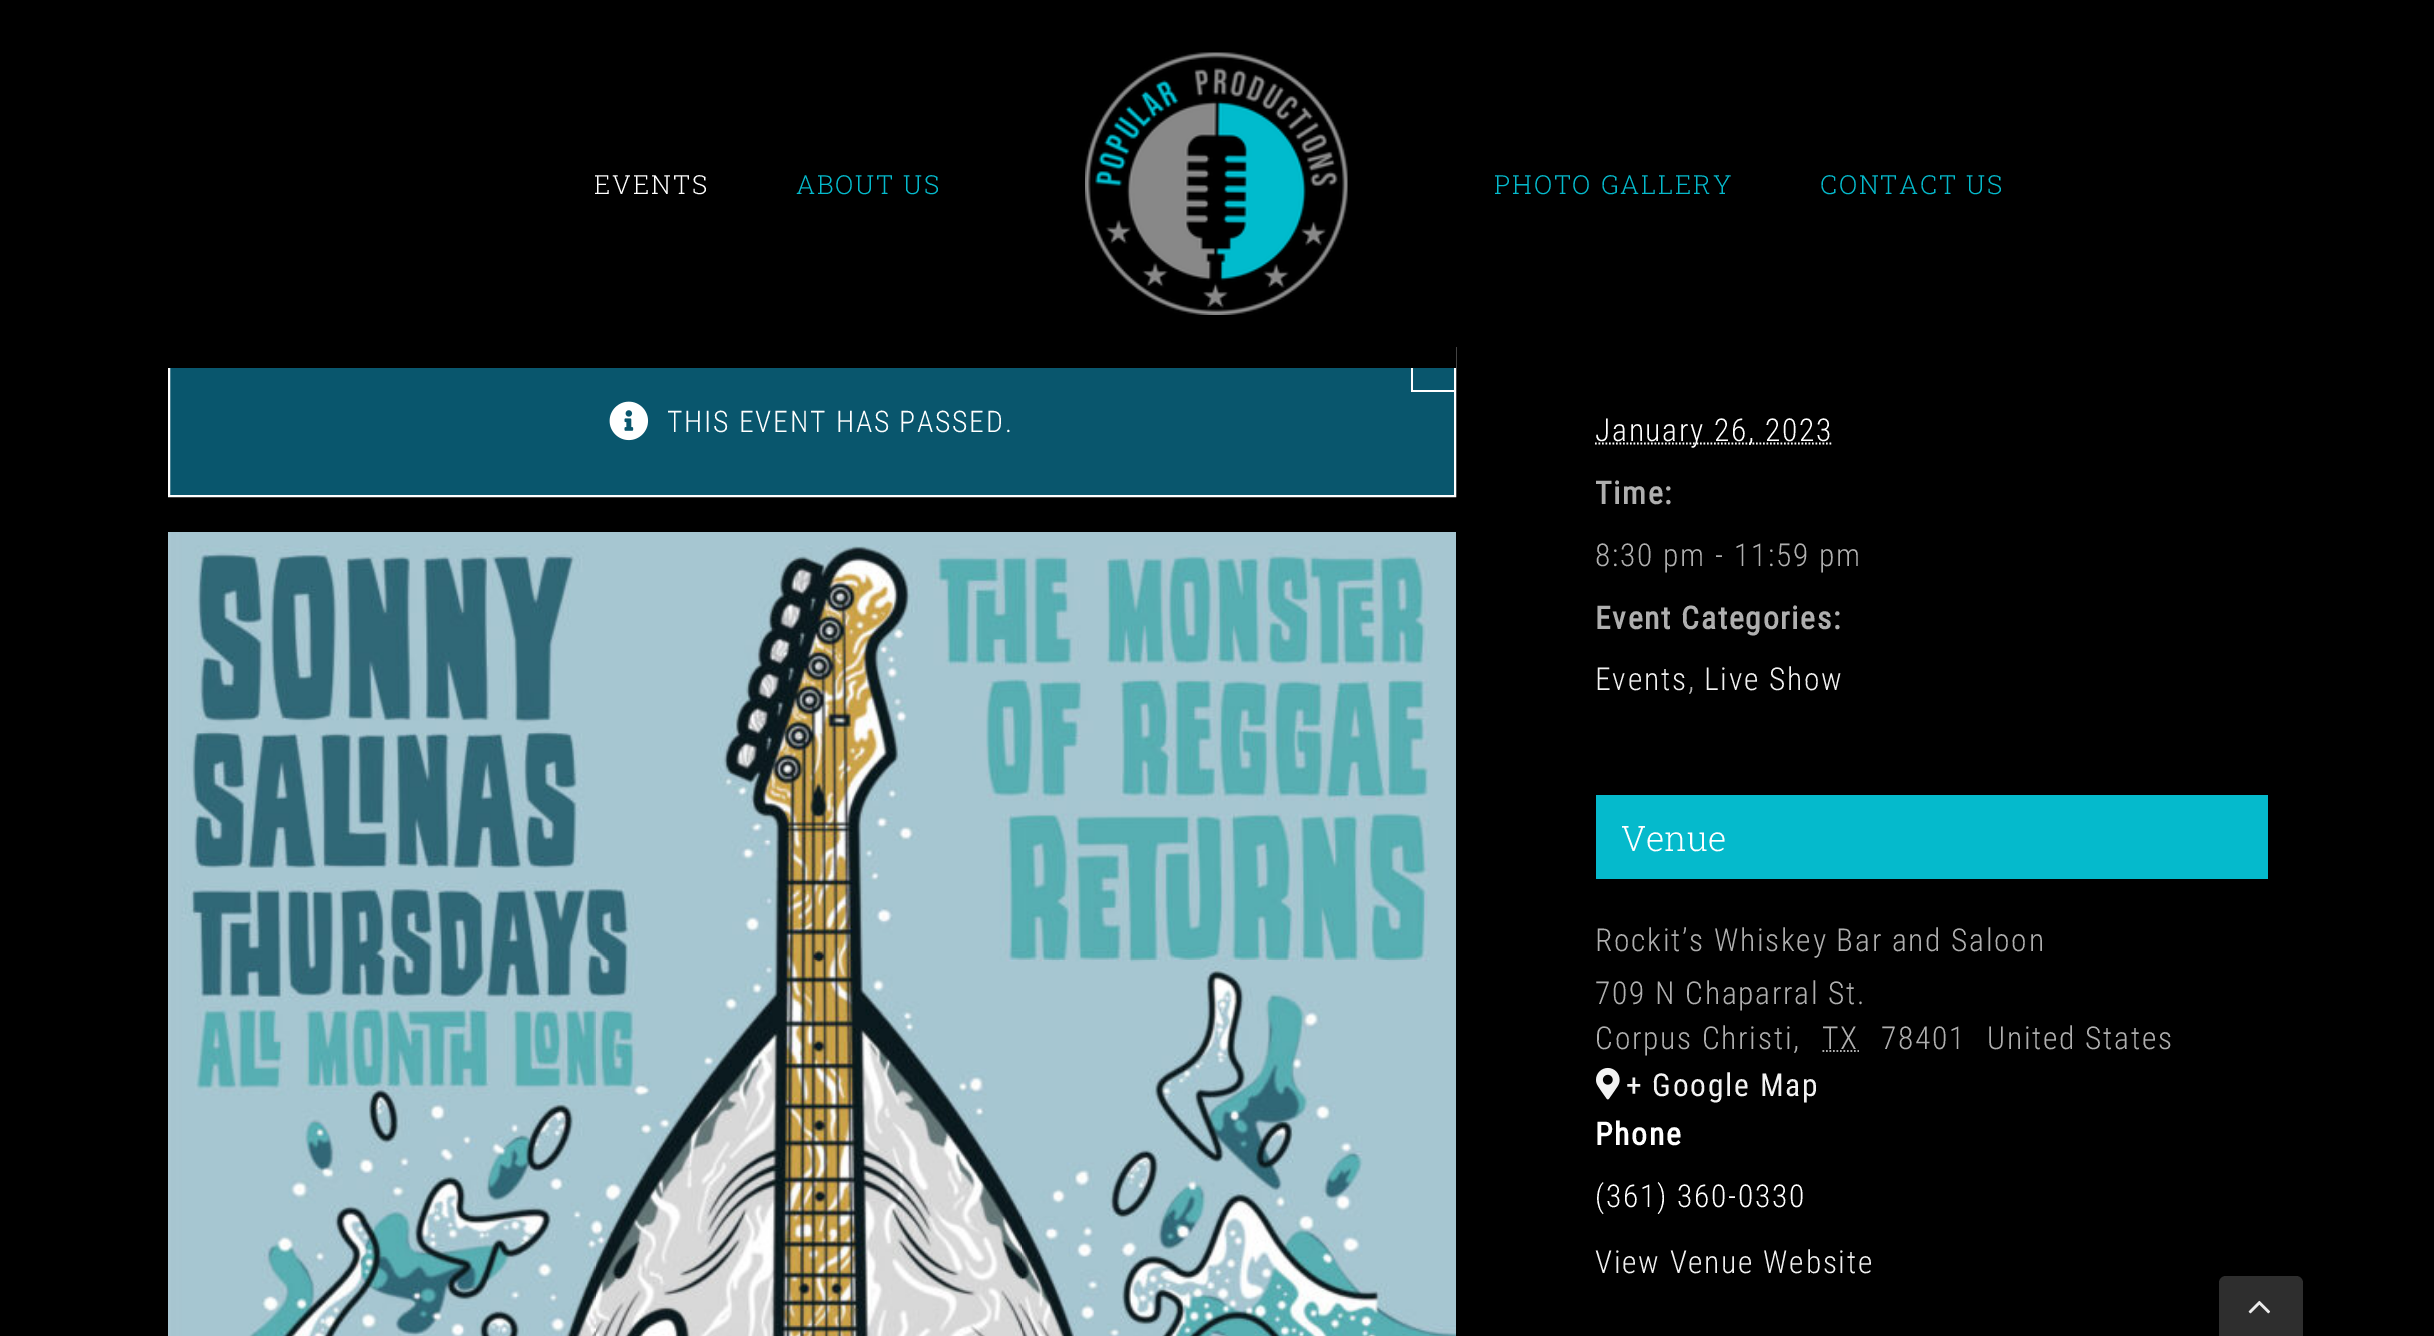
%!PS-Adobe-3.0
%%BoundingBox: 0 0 2434 1336
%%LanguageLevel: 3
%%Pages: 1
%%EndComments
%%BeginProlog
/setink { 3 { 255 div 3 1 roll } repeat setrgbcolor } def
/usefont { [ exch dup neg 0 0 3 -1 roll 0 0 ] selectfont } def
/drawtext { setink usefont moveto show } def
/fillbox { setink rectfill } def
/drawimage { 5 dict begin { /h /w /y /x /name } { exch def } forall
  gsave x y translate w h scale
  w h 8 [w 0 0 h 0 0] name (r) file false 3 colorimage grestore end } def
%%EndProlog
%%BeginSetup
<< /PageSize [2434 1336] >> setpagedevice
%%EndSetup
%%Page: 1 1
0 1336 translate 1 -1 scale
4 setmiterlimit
0 0 2434 1336 0 0 0 fillbox
170 368 1284 127 9 86 109 fillbox
255 255 255 setink
2 setlinewidth
169 348 1286 148 rectstroke
168 347 1288 21 0 0 0 fillbox
/RobotoSlab-Light 26.25 usefont
255 255 255 setink
594 194 moveto 1.75 0 (EVENTS) ashow
5 186 204 setink
796 194 moveto 1.75 0 (ABOUT US) ashow
(assets/img1.rgb) 1085 52 263 263 drawimage
1494 194 moveto 1.75 0 (PHOTO GALLERY) ashow
1820 194 moveto 1.75 0 (CONTACT US) ashow
1411 390 45 2 255 255 255 fillbox
1411 368 2 24 255 255 255 fillbox
(assets/img2.rgb) 609 401 40 40 drawimage
/RobotoCondensed-Light 29.75 usefont
667 432 moveto 1.75 0 (THIS EVENT HAS PASSED.) ashow
(assets/img3.rgb) 168 532 1288 804 drawimage
1.8 setlinewidth
[1.75 1.75] 0 setdash
1595 443.5 moveto 1833 443.5 lineto stroke
/RobotoCondensed-Light 31.5 usefont
1595 441 moveto 1.75 0 (January 26, 2023) ashow
/RobotoCondensed-Bold 31.5 usefont
175 175 175 setink
1595 504 moveto 1.75 0 (Time:) ashow
/RobotoCondensed-Light 31.5 usefont
1595 566 moveto 1.75 0 (8:30 pm - 11:59 pm) ashow
/RobotoCondensed-Bold 31.5 usefont
1595 629 moveto 1.75 0 (Event Categories:) ashow
/RobotoCondensed-Light 31.5 usefont
242 242 242 setink
1595 690 moveto 1.75 0 (Events) ashow
175 175 175 setink
1688 690 moveto 1.75 0 (,) ashow
242 242 242 setink
1704 690 moveto 1.75 0 (Live Show) ashow
1596 795 672 84 5 186 204 fillbox
(Venue) 1621 851 /RobotoSlab-Light 35 255 255 255 drawtext
/RobotoCondensed-Light 31.5 usefont
175 175 175 setink
1595 951 moveto 1.75 0 (Rockit’s Whiskey Bar and Saloon) ashow
1595 1004 moveto 1.75 0 (709 N Chaparral St.) ashow
1595 1049 moveto 1.75 0 (Corpus Christi,) ashow
1822 1049 moveto 1.75 0 (TX) ashow
1822.5 1051 moveto 1859 1051 lineto stroke
1881 1049 moveto 1.75 0 (78401) ashow
1987 1049 moveto 1.75 0 (United States) ashow
(assets/img4.rgb) 1596 1067 24 33 drawimage
/RobotoCondensed-Regular 31.5 usefont
242 242 242 setink
1626 1096 moveto 1.75 0 (+ Google Map) ashow
/RobotoCondensed-Bold 31.5 usefont
255 255 255 setink
1595 1145 moveto 1.75 0 (Phone) ashow
/RobotoCondensed-Light 31.5 usefont
1595 1207 moveto 1.75 0 (\(361\) 360-0330) ashow
242 242 242 setink
1595 1273 moveto 1.75 0 (View Venue Website) ashow
46 46 46 setink
2226 1276 moveto 2296 1276 lineto 2300 1276 2303 1279 2303 1283 curveto 2303 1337 lineto 2219 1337 lineto 2219 1283 lineto 2219 1279 2222 1276 2226 1276 curveto closepath fill
(assets/img5.rgb) 2248 1300 22 14 drawimage
showpage
%%EOF
